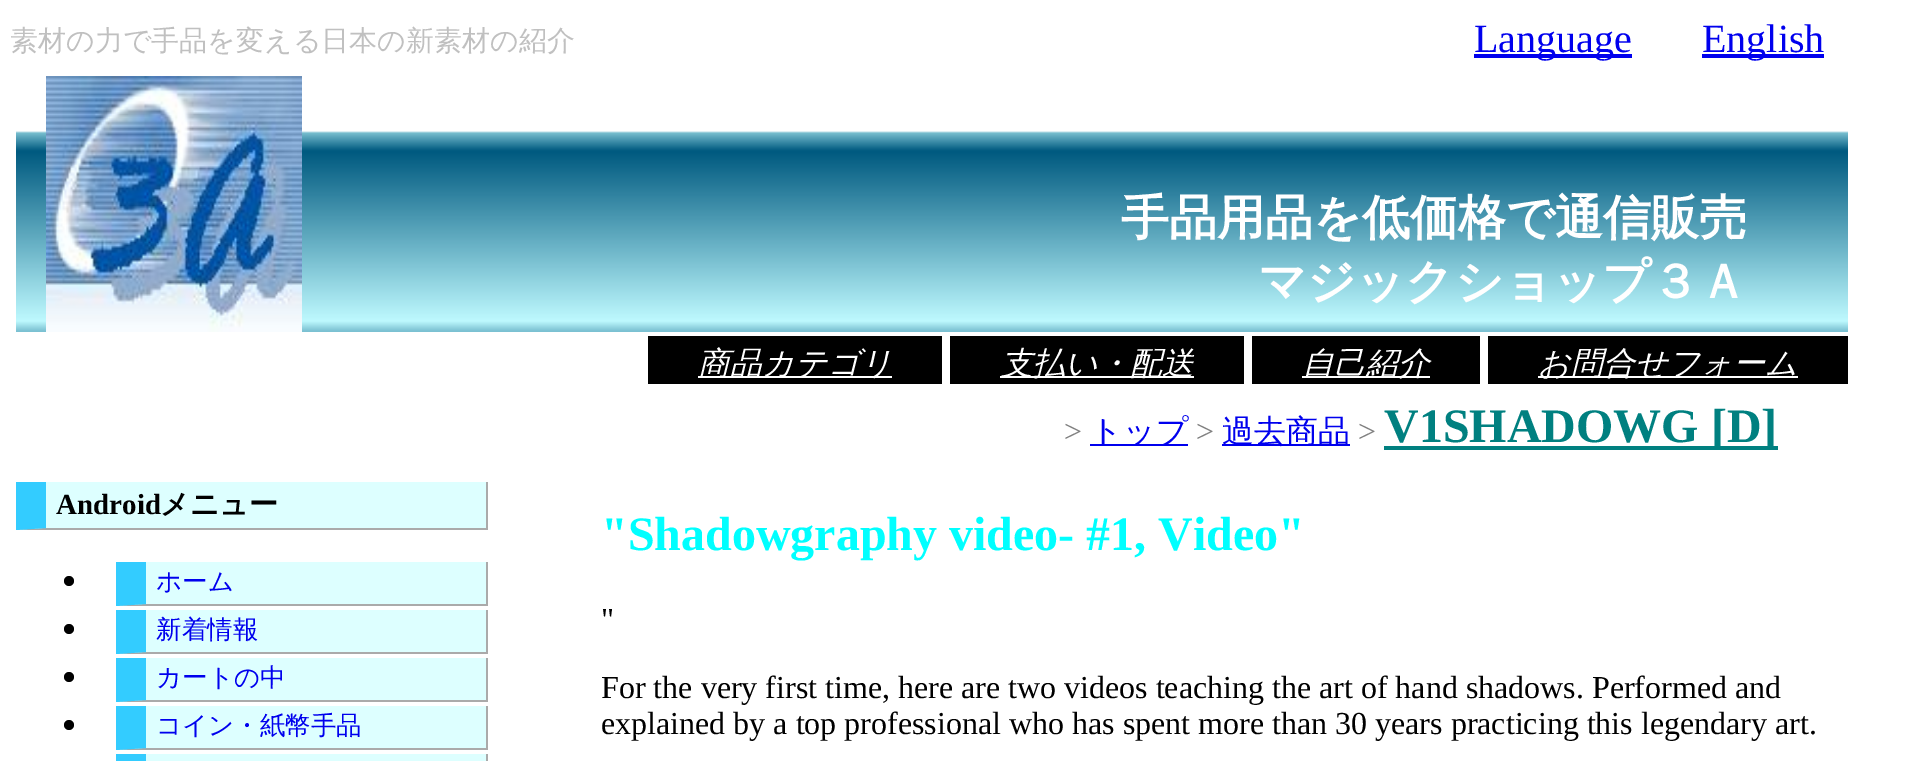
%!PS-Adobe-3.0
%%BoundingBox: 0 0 1919 761
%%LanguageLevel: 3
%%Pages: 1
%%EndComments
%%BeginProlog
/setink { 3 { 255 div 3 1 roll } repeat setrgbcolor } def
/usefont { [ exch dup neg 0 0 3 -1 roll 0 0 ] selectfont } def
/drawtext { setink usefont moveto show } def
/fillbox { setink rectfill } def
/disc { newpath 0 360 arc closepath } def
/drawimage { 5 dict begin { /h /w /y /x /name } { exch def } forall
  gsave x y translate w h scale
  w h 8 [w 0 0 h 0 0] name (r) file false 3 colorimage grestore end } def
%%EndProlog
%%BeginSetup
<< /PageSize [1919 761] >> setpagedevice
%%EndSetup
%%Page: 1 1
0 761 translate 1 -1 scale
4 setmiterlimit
0 0 1919 761 255 255 255 fillbox
(素材の力で手品を変える日本の新素材の紹介) 10 50 /WenQuanYiZenHei-Medium 28 192 192 192 drawtext
1474 54 158 4 0 0 238 fillbox
(Language) 1474 52 /LiberationSerif-Regular 40 0 0 238 drawtext
1702 54 122 4 0 0 238 fillbox
(English) 1702 52 /LiberationSerif-Regular 40 0 0 238 drawtext
(assets/img1.rgb) 16 131 1832 201 drawimage
(assets/img2.rgb) 46 76 256 256 drawimage
(手品用品を低価格で通信販売) 1121 234 /WenQuanYiZenHei-Bold 48 255 255 255 drawtext
(マジックショップ３Ａ) 1258 298 /WenQuanYiZenHei-Bold 48 255 255 255 drawtext
648 336 294 48 0 0 0 fillbox
698 376 194 2 255 255 255 fillbox
(商品カテゴリ) 698 374 /WenQuanYiZenHei-MediumItalic 32 255 255 255 drawtext
950 336 294 48 0 0 0 fillbox
1000 376 194 2 255 255 255 fillbox
(支払い・配送) 1001 374 /WenQuanYiZenHei-MediumItalic 32 255 255 255 drawtext
1252 336 228 48 0 0 0 fillbox
1302 376 128 2 255 255 255 fillbox
(自己紹介) 1302 374 /WenQuanYiZenHei-MediumItalic 32 255 255 255 drawtext
1488 336 360 48 0 0 0 fillbox
1538 376 260 2 255 255 255 fillbox
(お問合せフォーム) 1538 374 /WenQuanYiZenHei-MediumItalic 32 255 255 255 drawtext
(>) 1064 442 /LiberationSerif-Regular 32 128 128 128 drawtext
1090 444 98 2 0 0 238 fillbox
(トップ) 1090 442 /WenQuanYiZenHei-Medium 32 0 0 238 drawtext
(>) 1196 442 /LiberationSerif-Regular 32 128 128 128 drawtext
1222 444 128 2 0 0 238 fillbox
(過去商品) 1222 442 /WenQuanYiZenHei-Medium 32 0 0 238 drawtext
(>) 1358 442 /LiberationSerif-Regular 32 128 128 128 drawtext
1384 446 394 4 0 128 128 fillbox
(V1SHADOWG [D]) 1384 442 /LiberationSerif-Bold 48 0 128 128 drawtext
16 482 470 48 221 255 255 fillbox
486 482 2 48 170 170 170 fillbox
488 530 moveto 16 530 lineto 46 528 lineto 486 528 lineto closepath fill
51 204 255 setink
16 530 moveto 16 482 lineto 46 482 lineto 46 528 lineto closepath fill
(Android) 56 514 /LiberationSerif-Bold 29 0 0 0 drawtext
(メニュー) 160 514 /WenQuanYiZenHei-Bold 29 0 0 0 drawtext
69 581 5 disc fill
116 562 370 44 221 255 255 fillbox
486 562 2 44 170 170 170 fillbox
488 606 moveto 116 606 lineto 146 604 lineto 486 604 lineto closepath fill
51 204 255 setink
116 606 moveto 116 562 lineto 146 562 lineto 146 604 lineto closepath fill
(ホーム) 156 590 /WenQuanYiZenHei-Medium 25.5 0 0 238 drawtext
0 0 0 setink
69 629 5 disc fill
116 610 370 44 221 255 255 fillbox
486 610 2 44 170 170 170 fillbox
488 654 moveto 116 654 lineto 146 652 lineto 486 652 lineto closepath fill
51 204 255 setink
116 654 moveto 116 610 lineto 146 610 lineto 146 652 lineto closepath fill
(新着情報) 156 638 /WenQuanYiZenHei-Medium 25.5 0 0 238 drawtext
0 0 0 setink
69 677 5 disc fill
116 658 370 44 221 255 255 fillbox
486 658 2 44 170 170 170 fillbox
488 702 moveto 116 702 lineto 146 700 lineto 486 700 lineto closepath fill
51 204 255 setink
116 702 moveto 116 658 lineto 146 658 lineto 146 700 lineto closepath fill
(カートの中) 156 686 /WenQuanYiZenHei-Medium 25.5 0 0 238 drawtext
0 0 0 setink
69 725 5 disc fill
116 706 370 44 221 255 255 fillbox
486 706 2 44 170 170 170 fillbox
488 750 moveto 116 750 lineto 146 748 lineto 486 748 lineto closepath fill
51 204 255 setink
116 750 moveto 116 706 lineto 146 706 lineto 146 748 lineto closepath fill
(コイン・紙幣手品) 156 734 /WenQuanYiZenHei-Medium 25.5 0 0 238 drawtext
146 754 342 7 221 255 255 fillbox
486 754 2 7 170 170 170 fillbox
51 204 255 setink
116 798 moveto 116 754 lineto 146 754 lineto 146 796 lineto closepath fill
("Shadowgraphy video- #1, Video") 601 550 /LiberationSerif-Bold 48 0 255 255 drawtext
(") 601 630 /LiberationSerif-Regular 32 0 0 0 drawtext
(For the very first time, here are two videos teaching the art of hand shadows. Performed and) 601 698 /LiberationSerif-Regular 32 0 0 0 drawtext
(explained by a top professional who has spent more than 30 years practicing this legendary art.) 601 734 /LiberationSerif-Regular 32 0 0 0 drawtext
showpage
%%EOF
